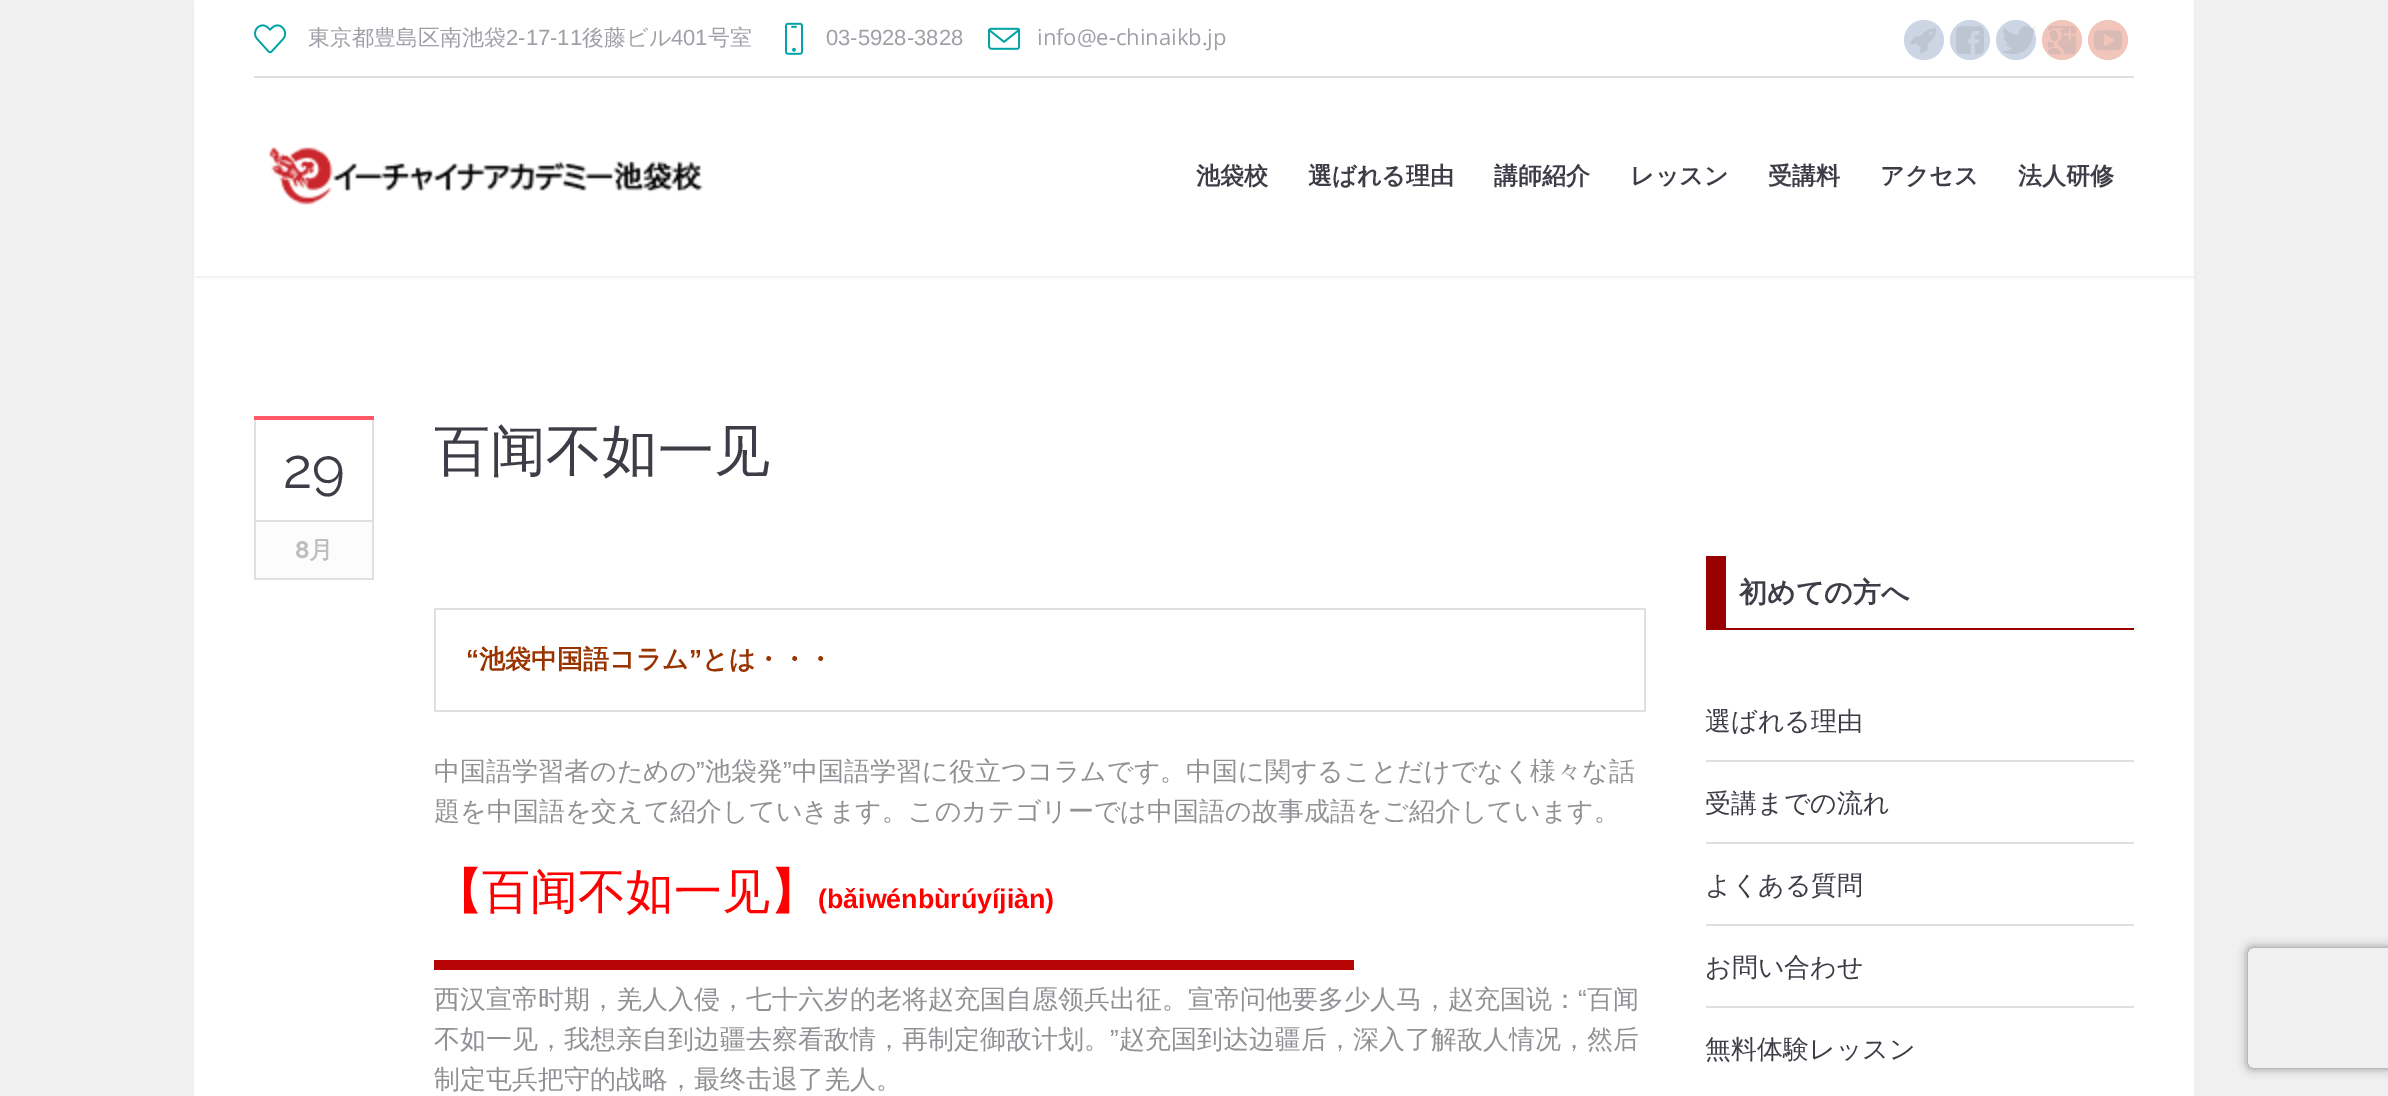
%!PS-Adobe-3.0
%%BoundingBox: 0 0 2388 1096
%%LanguageLevel: 3
%%Pages: 1
%%EndComments
%%BeginProlog
/setink { 3 { 255 div 3 1 roll } repeat setrgbcolor } def
/usefont { [ exch dup neg 0 0 3 -1 roll 0 0 ] selectfont } def
/drawtext { setink usefont moveto show } def
/fillbox { setink rectfill } def
/setalpha { dup .setfillconstantalpha .setstrokeconstantalpha } def
/disc { newpath 0 360 arc closepath } def
/rrect { 5 dict begin { /r /h /w /y /x } { exch def } forall
  x r add y moveto x w add y 2 copy h add r arct x w add y h add x 1 index r arct
  x y h add x y r arct x y 2 copy exch w add exch r arct closepath end } def
/softshadow { 12 dict begin { /a /b /q /h /w /y /x } { exch def } forall gsave /was 0 def
  9 -2 -9 { dup b mul 4 div /e exch def 1 sub .425 mul 2.718 exch exp 1 add a .99 .min exch div /now exch def
    1 1 now sub 1 was sub div sub setalpha /was now def
    w h .min e 2 mul add 0 gt { x e sub y e sub w e 2 mul add h e 2 mul add
      q e add b .6 mul add w h .min 2 div e add .min 0 .max rrect fill } if } for grestore end } def
/drawimage { 5 dict begin { /h /w /y /x /name } { exch def } forall
  gsave x y translate w h scale
  w h 8 [w 0 0 h 0 0] name (r) file false 3 colorimage grestore end } def
%%EndProlog
%%BeginSetup
<< /PageSize [2388 1096] /PageUsesTransparency true >> setpagedevice
%%EndSetup
%%Page: 1 1
0 .pushpdf14devicefilter
0 1096 translate 1 -1 scale
4 setmiterlimit
0 0 2388 1096 240 240 240 fillbox
194 276 2000 820 255 255 255 fillbox
0 0 0 setink
194 2 2000 276 0 1 0.05 softshadow
194 0 2000 276 255 255 255 fillbox
(assets/img1.rgb) 254 24 33 30 drawimage
(東京都豊島区南池袋) 308 45 /WenQuanYiZenHei-Medium 22 159 159 167 drawtext
(2-17-11) 506 45 /LiberationSans-Regular 22 159 159 167 drawtext
(後藤ビル) 582 45 /WenQuanYiZenHei-Medium 22 159 159 167 drawtext
(401) 671 45 /LiberationSans-Regular 22 159 159 167 drawtext
(号室) 708 45 /WenQuanYiZenHei-Medium 22 159 159 167 drawtext
(assets/img2.rgb) 785 22 18 33 drawimage
(03-5928-3828) 826 45 /LiberationSans-Regular 22 159 159 167 drawtext
(assets/img3.rgb) 988 27 33 23 drawimage
(info@e-chinaikb.jp) 1037 45 /OpenSans-Regular 22 159 159 167 drawtext
203 213 228 setink
1924 40 20 disc fill
(assets/img4.rgb) 1910 28 26 26 drawimage
1970 40 20 disc fill
(assets/img5.rgb) 1956 26 28 28 drawimage
2016 40 20 disc fill
(assets/img6.rgb) 2002 26 34 28 drawimage
242 197 186 setink
2062 40 20 disc fill
(assets/img7.rgb) 2048 26 28 29 drawimage
2108 40 20 disc fill
(assets/img8.rgb) 2094 30 28 21 drawimage
254 76 1880 2 224 224 224 fillbox
(assets/img9.rgb) 269 147 434 58 drawimage
(池袋校) 1196 184 /WenQuanYiZenHei-Bold 24 61 61 71 drawtext
(選ばれる理由) 1308 184 /WenQuanYiZenHei-Bold 24 61 61 71 drawtext
(講師紹介) 1494 184 /WenQuanYiZenHei-Bold 24 61 61 71 drawtext
(レッスン) 1630 184 /WenQuanYiZenHei-Bold 24 61 61 71 drawtext
(受講料) 1768 184 /WenQuanYiZenHei-Bold 24 61 61 71 drawtext
(アクセス) 1880 184 /WenQuanYiZenHei-Bold 24 61 61 71 drawtext
(法人研修) 2018 184 /WenQuanYiZenHei-Bold 24 61 61 71 drawtext
254 416 120 4 254 89 105 fillbox
372 420 2 160 224 224 224 fillbox
254 578 120 2 224 224 224 fillbox
254 420 2 160 224 224 224 fillbox
(29) 283 488 /Raleway-Regular 56 61 61 71 drawtext
256 522 116 56 252 252 252 fillbox
256 520 116 2 224 224 224 fillbox
(8) 295 558 /Raleway-Bold 24 188 190 193 drawtext
(月) 309 558 /WenQuanYiZenHei-Bold 24 188 190 193 drawtext
(百闻不如一见) 434 470 /WenQuanYiZenHei-Medium 56 61 61 71 drawtext
434 608 1212 2 224 224 224 fillbox
1644 608 2 104 224 224 224 fillbox
434 710 1212 2 224 224 224 fillbox
434 608 2 104 224 224 224 fillbox
(“) 466 668 /LiberationSans-Bold 26 153 51 0 drawtext
(池袋中国語コラム) 479 668 /WenQuanYiZenHei-Bold 26 153 51 0 drawtext
(”) 689 668 /LiberationSans-Bold 26 153 51 0 drawtext
(とは・・・) 702 668 /WenQuanYiZenHei-Bold 26 153 51 0 drawtext
(中国語学習者のための) 434 780 /WenQuanYiZenHei-Medium 26 144 145 149 drawtext
(”) 696 780 /LiberationSans-Regular 26 144 145 149 drawtext
(池袋発) 705 780 /WenQuanYiZenHei-Medium 26 144 145 149 drawtext
(”) 783 780 /LiberationSans-Regular 26 144 145 149 drawtext
(中国語学習に役立つコラムです。中国に関することだけでなく様々な話) 792 780 /WenQuanYiZenHei-Medium 26 144 145 149 drawtext
(題を中国語を交えて紹介していきます。このカテゴリーでは中国語の故事成語をご紹介しています。) 434 820 /WenQuanYiZenHei-Medium 26 144 145 149 drawtext
434 960 920 10 182 4 4 fillbox
(【) 434 908 /WenQuanYiZenHei-Bold 48 255 0 0 drawtext
(百闻不如一见) 482 908 /WenQuanYiZenHei-Medium 48 255 0 0 drawtext
(】) 770 908 /WenQuanYiZenHei-Bold 48 255 0 0 drawtext
(\(bǎiwénbùrúyíjiàn\)) 818 908 /LiberationSans-Bold 26.75 255 0 0 drawtext
(西汉宣帝时期，羌人入侵，七十六岁的老将赵充国自愿领兵出征。宣帝问他要多少人马，赵充国说：) 434 1008 /WenQuanYiZenHei-Medium 26 144 145 149 drawtext
(“) 1578 1008 /LiberationSans-Regular 26 144 145 149 drawtext
(百闻) 1587 1008 /WenQuanYiZenHei-Medium 26 144 145 149 drawtext
(不如一见，我想亲自到边疆去察看敌情，再制定御敌计划。) 434 1048 /WenQuanYiZenHei-Medium 26 144 145 149 drawtext
(”) 1110 1048 /LiberationSans-Regular 26 144 145 149 drawtext
(赵充国到达边疆后，深入了解敌人情况，然后) 1119 1048 /WenQuanYiZenHei-Medium 26 144 145 149 drawtext
(制定屯兵把守的战略，最终击退了羌人。) 434 1088 /WenQuanYiZenHei-Medium 26 144 145 149 drawtext
1726 628 408 2 153 0 0 fillbox
1706 556 20 74 153 0 0 fillbox
(初めての方へ) 1739 602 /WenQuanYiZenHei-Bold 28 61 61 71 drawtext
(選ばれる理由) 1705 730 /WenQuanYiZenHei-Medium 26 61 61 71 drawtext
1706 760 428 2 224 224 224 fillbox
(受講までの流れ) 1705 812 /WenQuanYiZenHei-Medium 26 61 61 71 drawtext
1706 842 428 2 224 224 224 fillbox
(よくある質問) 1705 894 /WenQuanYiZenHei-Medium 26 61 61 71 drawtext
1706 924 428 2 224 224 224 fillbox
(お問い合わせ) 1705 976 /WenQuanYiZenHei-Medium 26 61 61 71 drawtext
1706 1006 428 2 224 224 224 fillbox
(無料体験レッスン) 1705 1058 /WenQuanYiZenHei-Medium 26 61 61 71 drawtext
gsave
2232 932 moveto 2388 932 lineto 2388 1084 lineto 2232 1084 lineto closepath 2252 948 moveto 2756 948 lineto 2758 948 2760 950 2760 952 curveto 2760 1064 lineto 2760 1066 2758 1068 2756 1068 curveto 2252 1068 lineto 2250 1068 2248 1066 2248 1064 curveto 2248 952 lineto 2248 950 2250 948 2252 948 curveto closepath eoclip newpath
128 128 128 setink
2248 948 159 120 4 5 1 softshadow
grestore
.poppdf14devicefilter showpage
%%EOF
